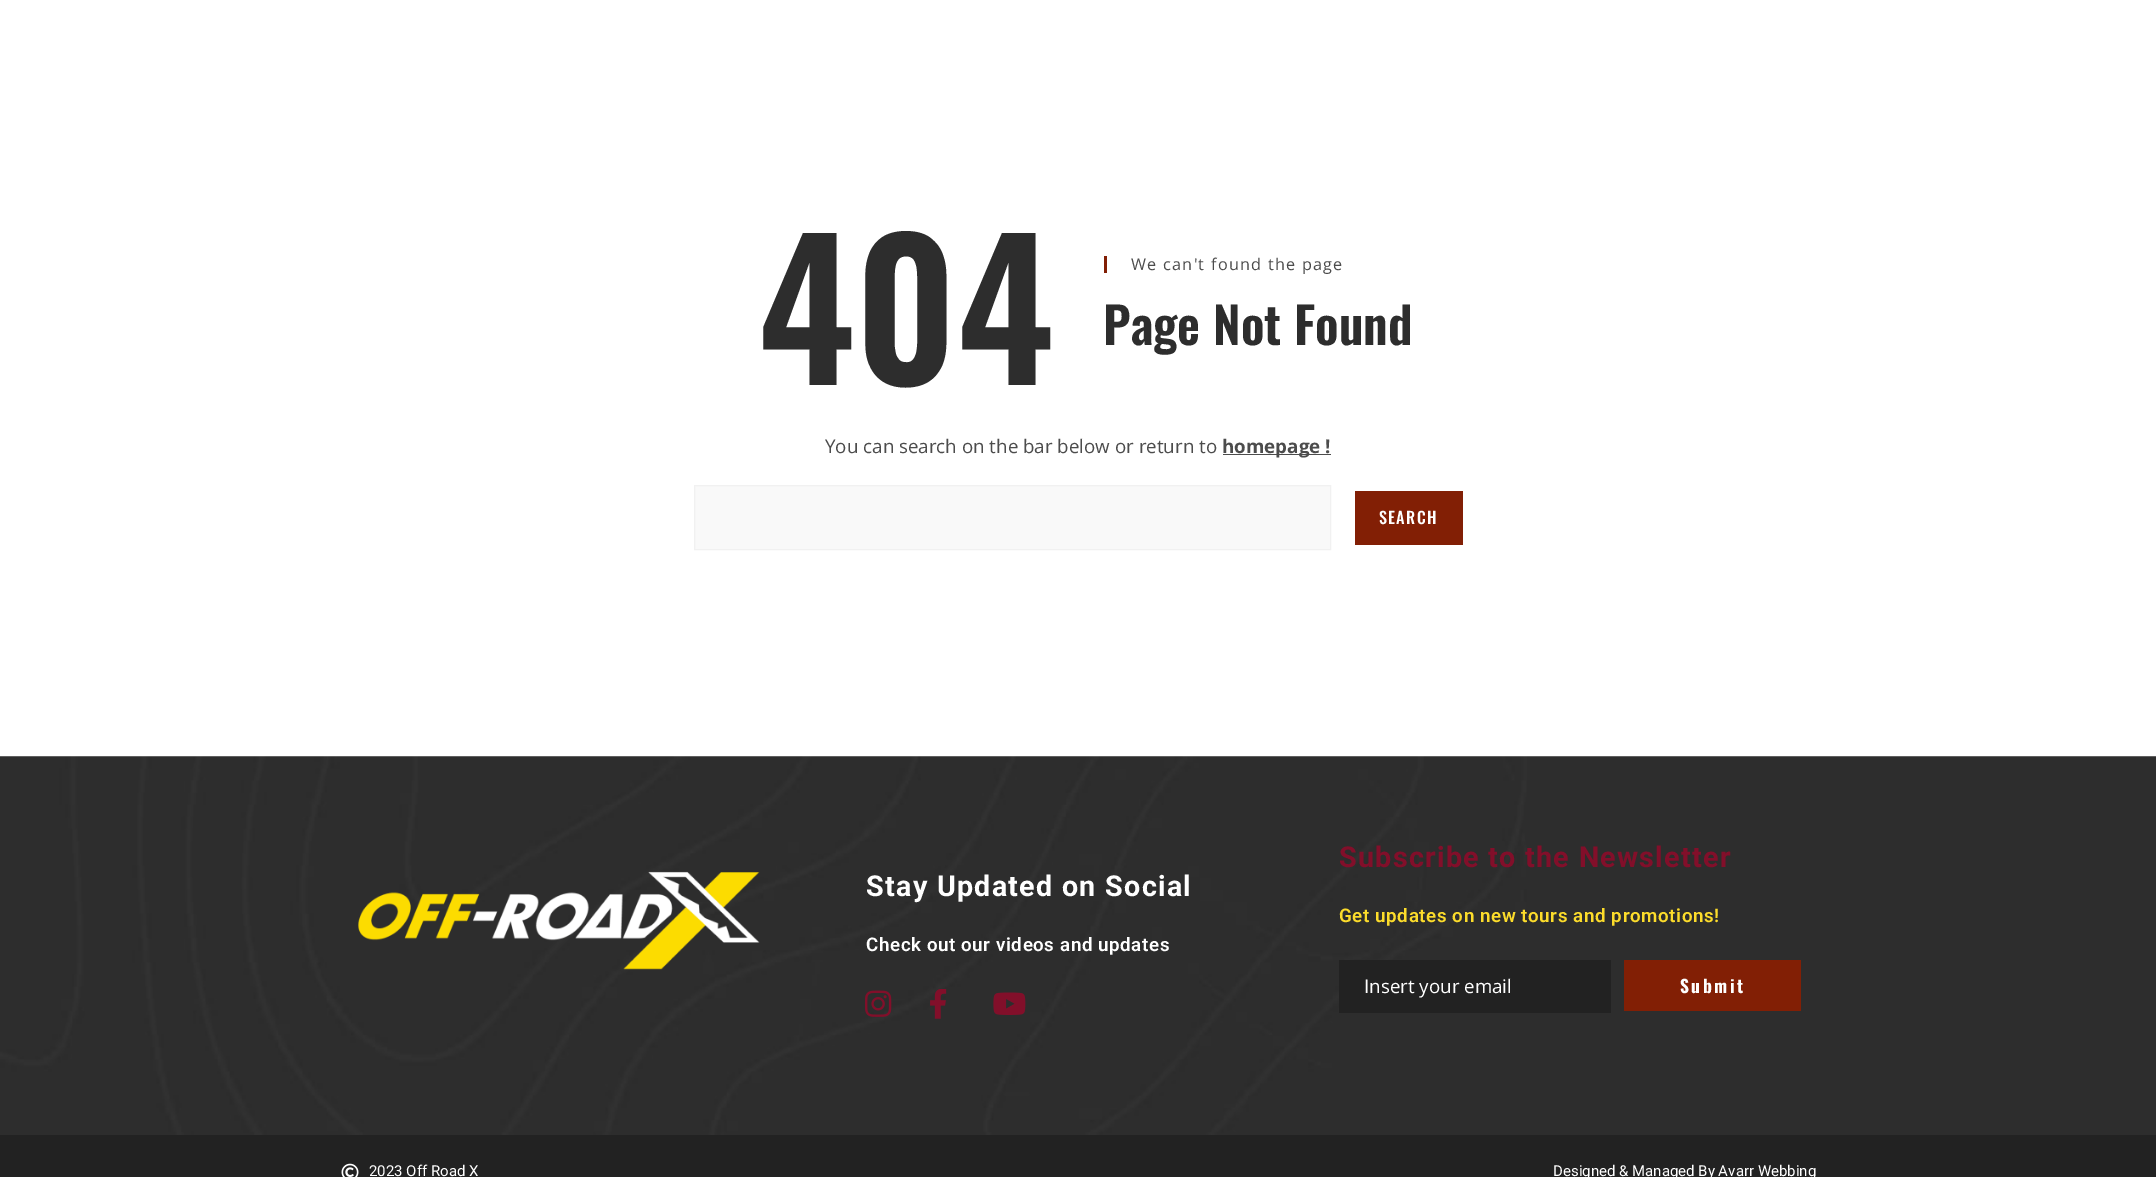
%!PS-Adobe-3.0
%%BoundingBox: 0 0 2156 1177
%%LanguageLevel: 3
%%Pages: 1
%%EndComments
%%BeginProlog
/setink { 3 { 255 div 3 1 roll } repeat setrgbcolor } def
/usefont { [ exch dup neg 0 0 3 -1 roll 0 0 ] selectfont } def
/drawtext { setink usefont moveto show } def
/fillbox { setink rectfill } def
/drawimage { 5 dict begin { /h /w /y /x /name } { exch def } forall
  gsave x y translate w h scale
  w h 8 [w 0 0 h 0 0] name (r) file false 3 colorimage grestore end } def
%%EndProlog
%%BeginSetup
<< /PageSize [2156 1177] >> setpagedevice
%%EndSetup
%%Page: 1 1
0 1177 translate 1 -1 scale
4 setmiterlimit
0 0 2156 1177 255 255 255 fillbox
(404) 758 385 /Oswald-SemiBold 188 45 45 45 drawtext
1104 256 3 17 130 31 5 fillbox
/OpenSans-Regular 16.25 usefont
76 76 76 setink
1131 270 moveto 1.25 0 (We can't found the page) ashow
(Page Not Found) 1103 345 /Oswald-SemiBold 50 45 45 45 drawtext
(You can search on the bar below or return to) 825 453 /OpenSans-Regular 18.75 76 76 76 drawtext
1223 454 108 1 76 76 76 fillbox
(homepage !) 1222 453 /OpenSans-Bold 18.75 76 76 76 drawtext
249 249 249 setink
694.5 485.5 moveto 1330.5 485.5 lineto 1330.5 549.5 lineto 694.5 549.5 lineto closepath gsave fill grestore
241 241 241 setink
stroke
1355 491 108 54 130 31 5 fillbox
/Oswald-Medium 16.25 usefont
255 255 255 setink
1379 524 moveto 1.25 0 (SEARCH) ashow
(assets/img1.rgb) 0 756 2156 379 drawimage
(assets/img2.rgb) 358 871 402 99 drawimage
/Roboto-Bold 28.75 usefont
866 896 moveto 1.25 0 (Stay Updated on Social) ashow
/Roboto-SemiBold 18.75 usefont
866 951 moveto 0.6 0 (Check out our videos and updates) ashow
(assets/img3.rgb) 865 990 27 27 drawimage
(assets/img4.rgb) 930 989 17 30 drawimage
(assets/img5.rgb) 993 992 33 23 drawimage
/Roboto-Bold 28.75 usefont
130 15 42 setink
1339 867 moveto 1.25 0 (Subscribe to the Newsletter) ashow
/Roboto-SemiBold 18.75 usefont
252 220 43 setink
1339 922 moveto 0.6 0 (Get updates on new tours and promotions!) ashow
1339 960 272 53 34 34 34 fillbox
(Insert your email) 1364 993 /OpenSans-Regular 18.75 255 255 255 drawtext
1624 960 177 51 130 31 5 fillbox
/Oswald-Bold 17.5 usefont
255 255 255 setink
1680 993 moveto 2.5 0 (Submit) ashow
0 1135 2156 42 34 34 34 fillbox
(assets/img6.rgb) 341 1163 18 14 drawimage
(2023 Off Road X) 369 1176 /Roboto-Regular 15 255 255 255 drawtext
(Designed & Managed By Avarr Webbing) 1553 1176 /Roboto-Regular 15 255 255 255 drawtext
showpage
%%EOF
